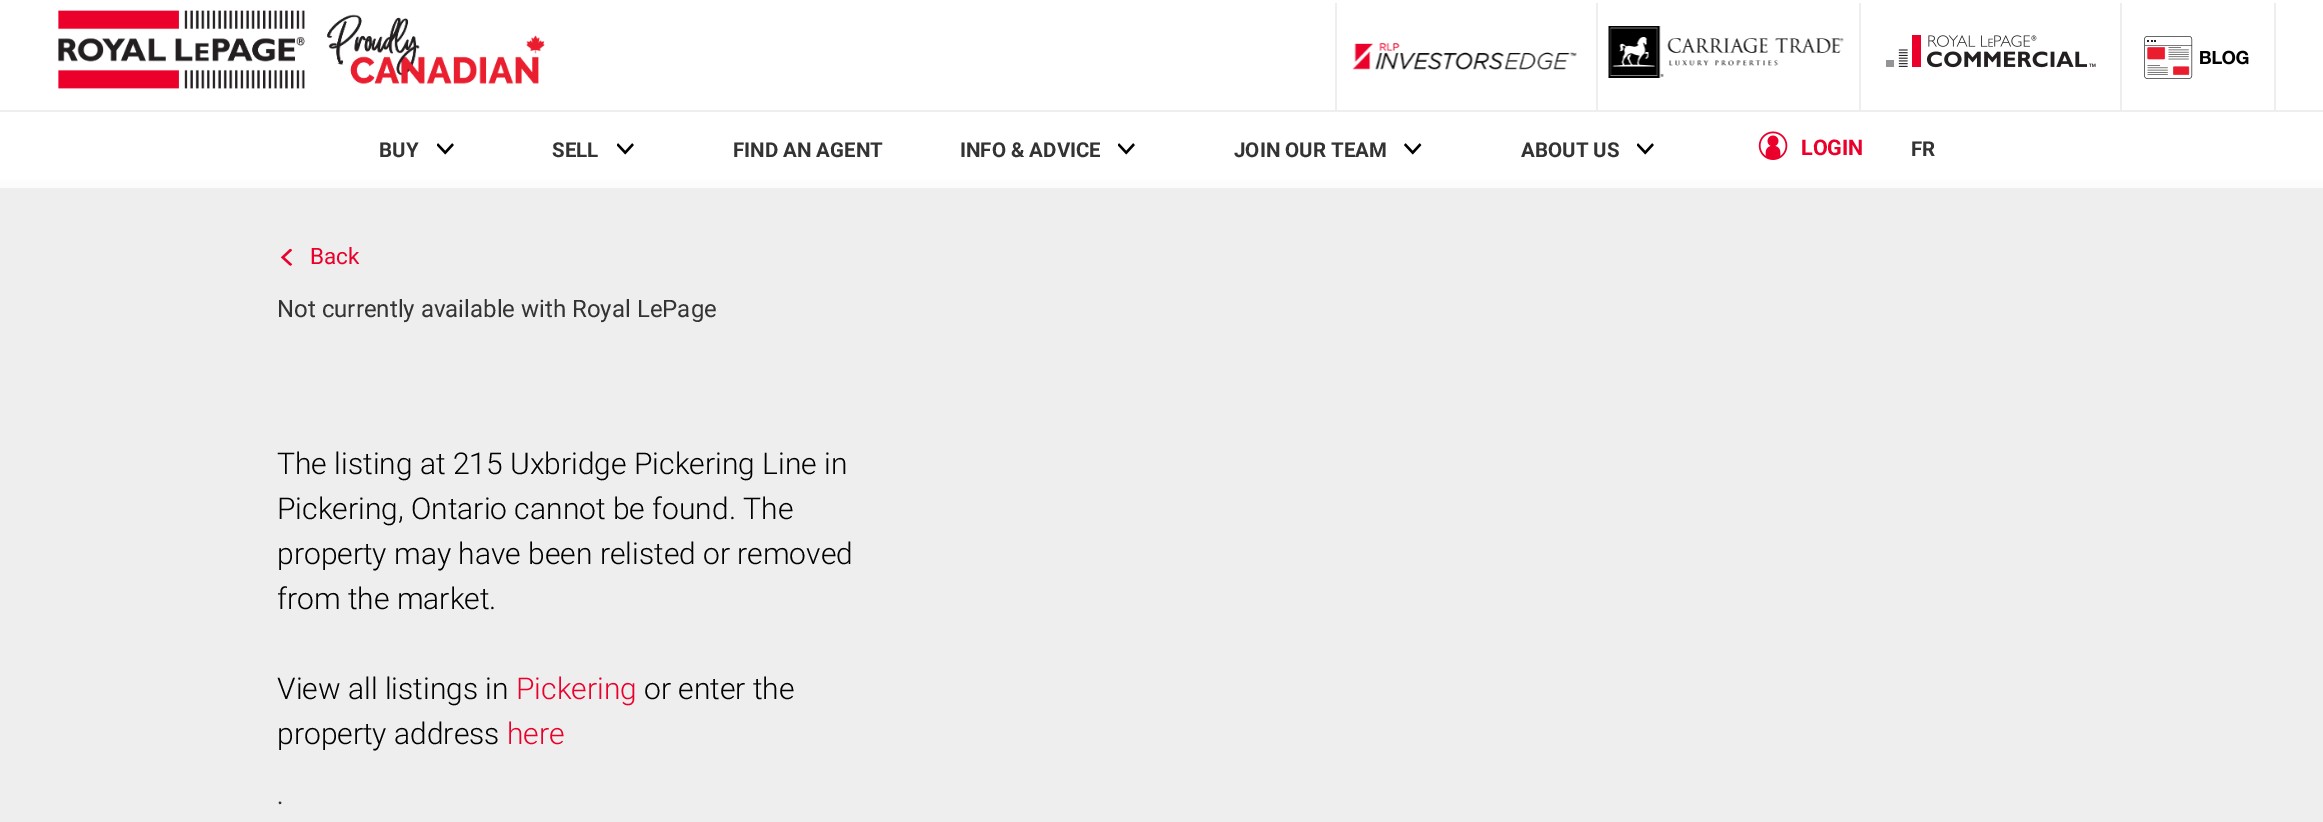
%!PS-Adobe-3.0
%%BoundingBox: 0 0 2323 822
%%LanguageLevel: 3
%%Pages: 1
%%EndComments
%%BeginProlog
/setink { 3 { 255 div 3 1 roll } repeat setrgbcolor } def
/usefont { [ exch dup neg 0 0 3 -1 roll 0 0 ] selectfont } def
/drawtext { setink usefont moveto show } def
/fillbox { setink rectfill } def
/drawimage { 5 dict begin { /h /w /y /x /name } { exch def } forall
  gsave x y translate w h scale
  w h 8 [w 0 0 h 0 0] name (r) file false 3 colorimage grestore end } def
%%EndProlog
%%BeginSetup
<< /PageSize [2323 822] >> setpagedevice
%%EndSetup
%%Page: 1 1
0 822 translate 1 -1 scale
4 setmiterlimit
0 0 2323 822 238 238 238 fillbox
gsave 0 0 moveto 2323 0 lineto 2323 188 lineto 0 188 lineto closepath clip newpath
<< /ShadingType 2 /ColorSpace /DeviceRGB /Coords [1162 0 1162 189] /Extend [true true] /Function << /FunctionType 3 /Domain [0 1] /Functions [<< /FunctionType 2 /Domain [0 1] /C0 [1 1 1] /C1 [1 1 1] /N 1 >> << /FunctionType 2 /Domain [0 1] /C0 [0.992 0.992 0.992] /C1 [0.988 0.988 0.988] /N 1 >>] /Bounds [0.95] /Encode [0 1 0 1] >> >> shfill grestore
(assets/img1.rgb) 58 10 487 79 drawimage
1335 3 2 107 238 238 238 fillbox
(assets/img2.rgb) 1352 43 225 27 drawimage
1596 3 2 107 238 238 238 fillbox
(assets/img3.rgb) 1608 26 236 52 drawimage
1859 3 2 107 238 238 238 fillbox
(assets/img4.rgb) 1886 35 210 33 drawimage
2274 3 2 107 238 238 238 fillbox
2120 3 2 107 238 238 238 fillbox
(assets/img5.rgb) 2144 36 105 43 drawimage
0 110 2323 2 238 238 238 fillbox
(BUY) 379 157 /Roboto-Bold 20.5 51 51 51 drawtext
(assets/img6.rgb) 437 143 17 12 drawimage
(SELL) 552 157 /Roboto-Bold 20.5 51 51 51 drawtext
(assets/img6.rgb) 617 143 17 12 drawimage
(FIND AN AGENT) 733 157 /Roboto-Bold 20.5 51 51 51 drawtext
(INFO & ADVICE) 960 157 /Roboto-Bold 20.5 51 51 51 drawtext
(assets/img6.rgb) 1118 143 17 12 drawimage
(JOIN OUR TEAM) 1234 157 /Roboto-Bold 20.5 51 51 51 drawtext
(assets/img7.rgb) 1404 143 18 12 drawimage
(ABOUT US) 1521 157 /Roboto-Bold 20.5 51 51 51 drawtext
(assets/img6.rgb) 1637 143 17 12 drawimage
(assets/img8.rgb) 1758 131 30 29 drawimage
(LOGIN) 1801 155 /Roboto-Bold 21.5 234 0 42 drawtext
(FR) 1911 156 /Roboto-Bold 20.5 51 51 51 drawtext
(assets/img9.rgb) 281 248 12 18 drawimage
(Back) 310 264 /Roboto-Regular 22.5 234 0 42 drawtext
(Not currently available with Royal LePage) 277 317 /Roboto-Regular 24 51 51 51 drawtext
(The listing at 215 Uxbridge Pickering Line in) 277 474 /Roboto-Light 30 0 0 0 drawtext
(Pickering, Ontario cannot be found. The) 277 519 /Roboto-Light 30 0 0 0 drawtext
(property may have been relisted or removed) 277 564 /Roboto-Light 30 0 0 0 drawtext
(from the market.) 277 609 /Roboto-Light 30 0 0 0 drawtext
(View all listings in) 277 699 /Roboto-Light 30 0 0 0 drawtext
(Pickering) 516 699 /Roboto-Light 30 234 0 42 drawtext
(or enter the) 644 699 /Roboto-Light 30 0 0 0 drawtext
(property address) 277 744 /Roboto-Light 30 0 0 0 drawtext
(here) 507 744 /Roboto-Light 30 234 0 42 drawtext
(.) 277 804 /Roboto-Regular 24 51 51 51 drawtext
showpage
%%EOF
